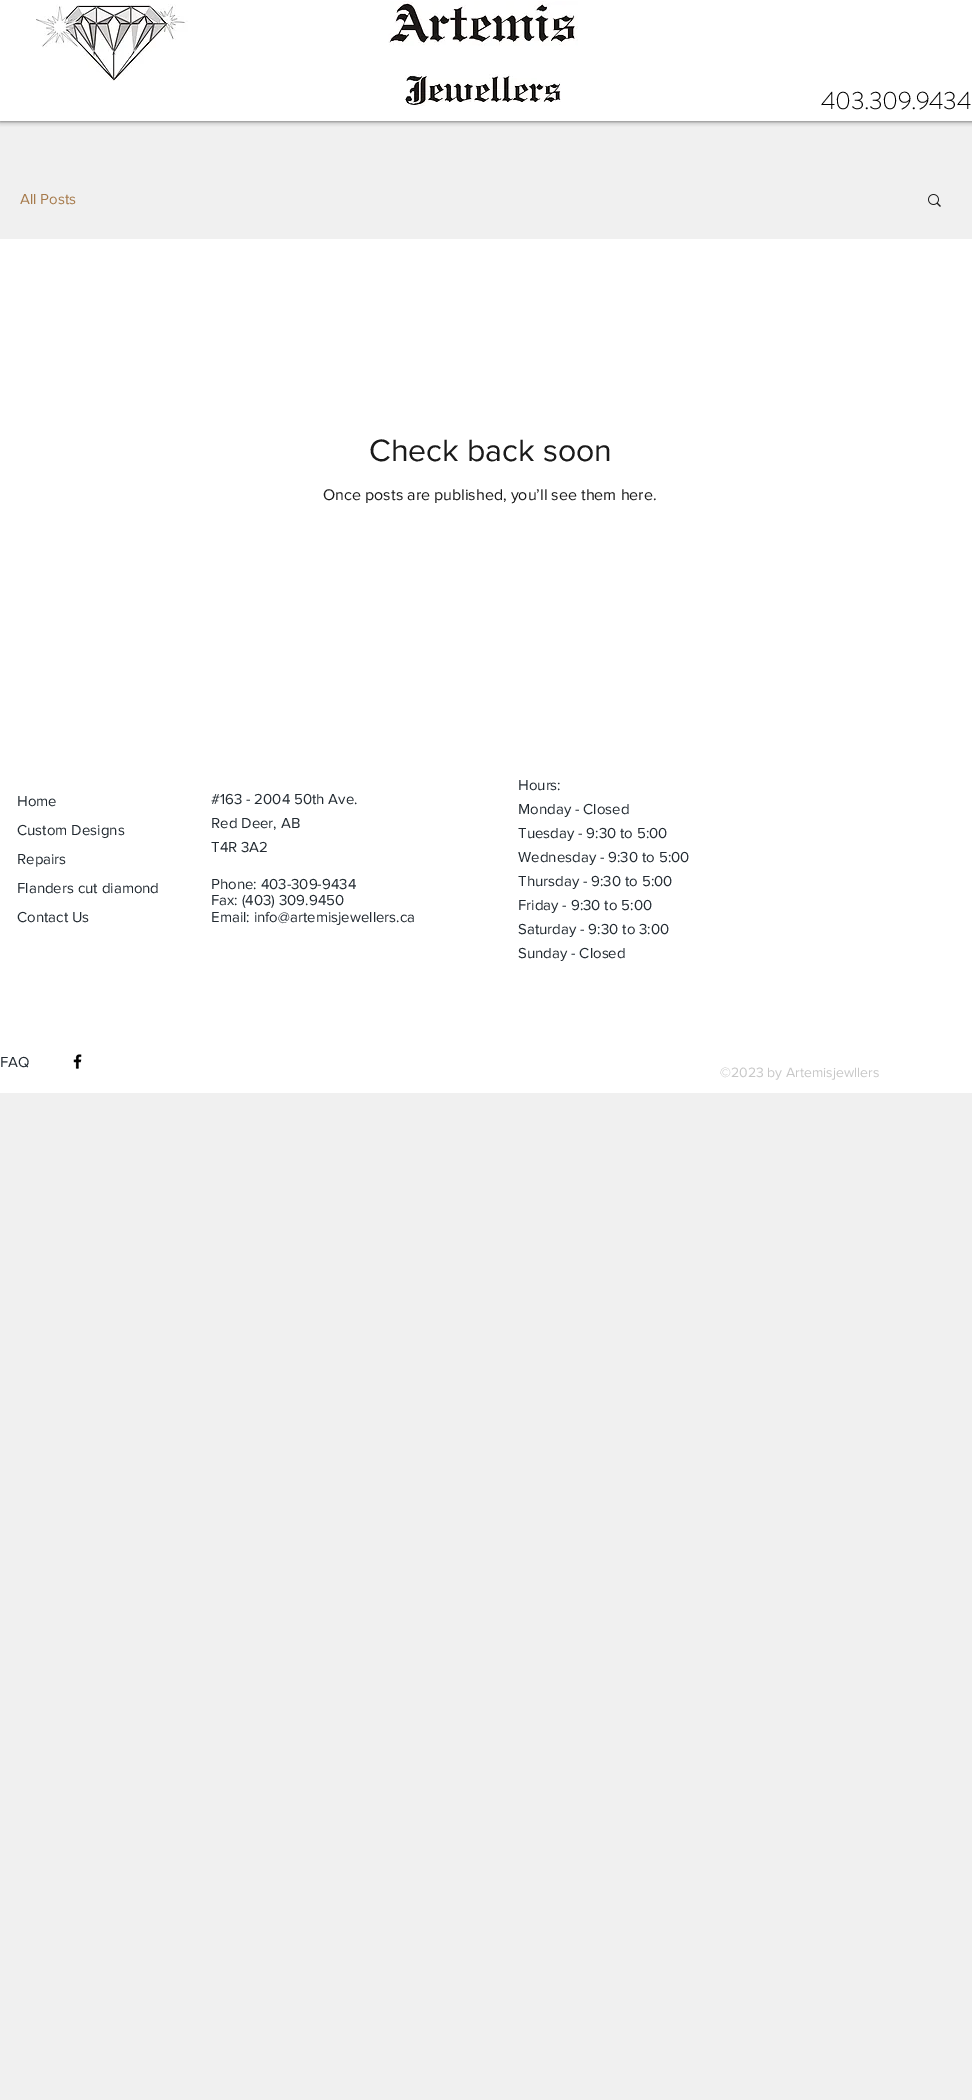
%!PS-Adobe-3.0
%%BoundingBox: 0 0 972 2100
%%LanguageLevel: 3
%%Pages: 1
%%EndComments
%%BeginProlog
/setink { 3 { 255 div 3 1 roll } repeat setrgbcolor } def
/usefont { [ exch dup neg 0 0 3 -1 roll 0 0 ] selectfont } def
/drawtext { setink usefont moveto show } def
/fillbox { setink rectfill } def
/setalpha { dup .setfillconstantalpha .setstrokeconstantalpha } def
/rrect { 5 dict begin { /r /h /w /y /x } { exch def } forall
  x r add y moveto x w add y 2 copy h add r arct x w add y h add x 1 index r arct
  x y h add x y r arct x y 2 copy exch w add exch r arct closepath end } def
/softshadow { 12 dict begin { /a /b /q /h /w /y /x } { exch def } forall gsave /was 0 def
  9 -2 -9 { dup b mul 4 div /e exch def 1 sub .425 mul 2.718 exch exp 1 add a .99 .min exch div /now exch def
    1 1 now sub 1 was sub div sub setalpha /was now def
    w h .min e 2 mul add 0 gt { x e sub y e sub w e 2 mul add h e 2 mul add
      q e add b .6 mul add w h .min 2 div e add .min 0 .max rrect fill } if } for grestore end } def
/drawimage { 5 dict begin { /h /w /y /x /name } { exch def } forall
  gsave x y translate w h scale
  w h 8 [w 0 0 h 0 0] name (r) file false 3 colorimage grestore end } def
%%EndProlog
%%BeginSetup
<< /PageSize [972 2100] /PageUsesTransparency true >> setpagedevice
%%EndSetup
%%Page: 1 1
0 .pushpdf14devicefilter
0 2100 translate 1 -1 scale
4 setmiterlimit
0 0 972 2100 240 240 240 fillbox
0 0 0 setink
0 0 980 121 0 2.5 0.7 softshadow
0 0 972 121 255 255 255 fillbox
(assets/img1.rgb) 36 4 152 77 drawimage
(assets/img2.rgb) 388 1 190 45 drawimage
(assets/img3.rgb) 405 74 156 32 drawimage
/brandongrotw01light-Light 25 usefont
0 0 0 setink
821 109 moveto -0.5 0 (403.309.9434) ashow
(All Posts) 20 204 /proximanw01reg-Regular 15 166 122 75 drawtext
(assets/img4.rgb) 928 194 13 13 drawimage
0 239 972 854 255 255 255 fillbox
(Check back soon) 369 461 /proximanw01reg-Regular 32 26 26 26 drawtext
(Once posts are published, you’ll see them here.) 323 500 /proximanw01reg-Regular 16 26 26 26 drawtext
(Home) 17 806 /proximanw01reg-Regular 15 34 42 49 drawtext
(Custom Designs) 17 835 /proximanw01reg-Regular 15 34 42 49 drawtext
(Repairs) 17 864 /proximanw01reg-Regular 15 34 42 49 drawtext
(Flanders cut diamond) 17 893 /proximanw01reg-Regular 15 34 42 49 drawtext
(Contact Us) 17 922 /proximanw01reg-Regular 15 34 42 49 drawtext
(#163 - 2004 50th Ave.) 211 804 /proximanw01reg-Regular 15 34 42 49 drawtext
(Red Deer, AB) 211 828 /proximanw01reg-Regular 15 34 42 49 drawtext
(T4R 3A2) 211 852 /proximanw01reg-Regular 15 34 42 49 drawtext
(Phone: 403-309-9434) 211 889 /proximanw01reg-Regular 15 34 42 49 drawtext
(Fax: \(403\) 309.9450) 211 905 /proximanw01reg-Regular 15 34 42 49 drawtext
(Email: info@artemisjewellers.ca) 211 922 /proximanw01reg-Regular 15 34 42 49 drawtext
(Hours:) 518 790 /proximanw01reg-Regular 15 34 42 49 drawtext
(Monday - Closed) 518 814 /proximanw01reg-Regular 15 34 42 49 drawtext
(Tuesday - 9:30 to 5:00) 518 838 /proximanw01reg-Regular 15 34 42 49 drawtext
(Wednesday - 9:30 to 5:00) 518 862 /proximanw01reg-Regular 15 34 42 49 drawtext
(Thursday - 9:30 to 5:00) 518 886 /proximanw01reg-Regular 15 34 42 49 drawtext
(Friday - 9:30 to 5:00) 518 910 /proximanw01reg-Regular 15 34 42 49 drawtext
(Saturday - 9:30 to 3:00) 518 934 /proximanw01reg-Regular 15 34 42 49 drawtext
(Sunday - Closed) 518 958 /proximanw01reg-Regular 15 34 42 49 drawtext
(FAQ) 0 1067 /proximanw01reg-Regular 15 34 42 49 drawtext
(assets/img5.rgb) 73 1054 9 15 drawimage
(©2023 by Artemisjewllers) 720 1077 /proximanw01reg-Regular 14 199 199 199 drawtext
.poppdf14devicefilter showpage
%%EOF
